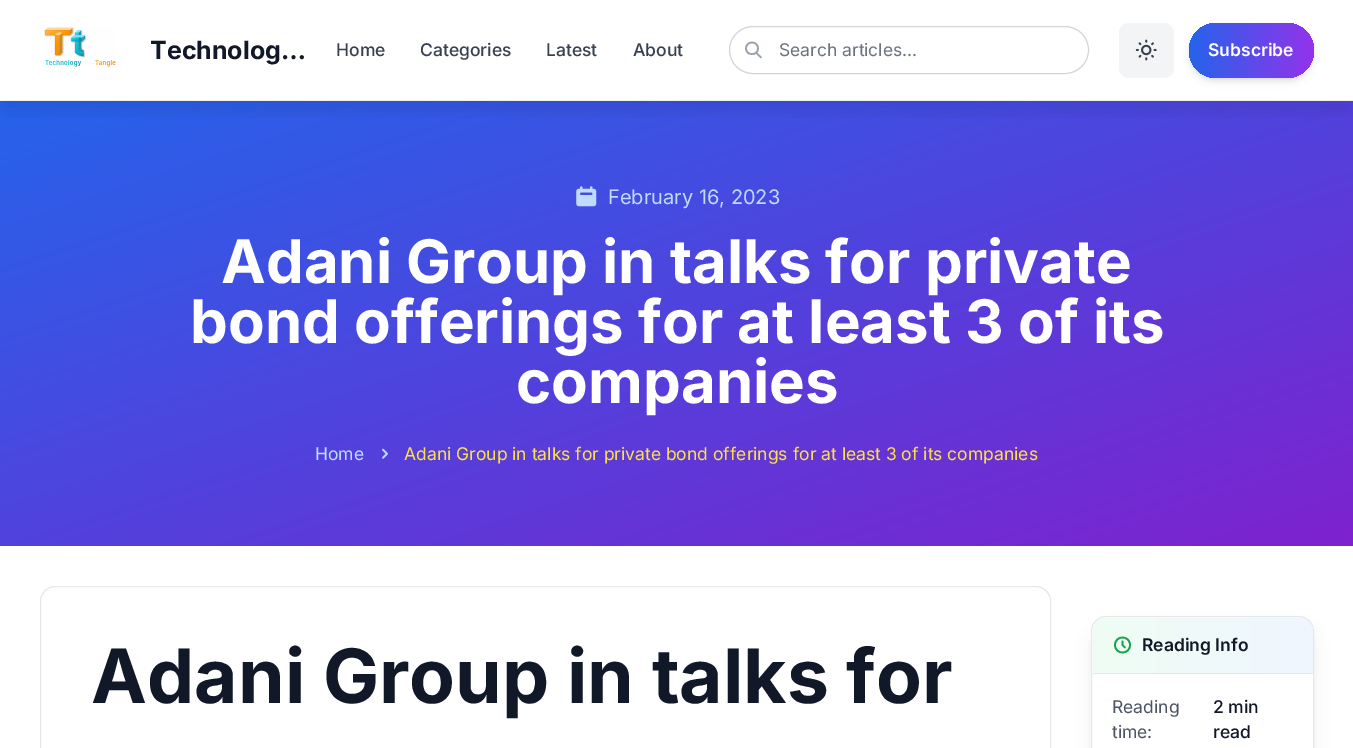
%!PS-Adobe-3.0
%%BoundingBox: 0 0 1353 748
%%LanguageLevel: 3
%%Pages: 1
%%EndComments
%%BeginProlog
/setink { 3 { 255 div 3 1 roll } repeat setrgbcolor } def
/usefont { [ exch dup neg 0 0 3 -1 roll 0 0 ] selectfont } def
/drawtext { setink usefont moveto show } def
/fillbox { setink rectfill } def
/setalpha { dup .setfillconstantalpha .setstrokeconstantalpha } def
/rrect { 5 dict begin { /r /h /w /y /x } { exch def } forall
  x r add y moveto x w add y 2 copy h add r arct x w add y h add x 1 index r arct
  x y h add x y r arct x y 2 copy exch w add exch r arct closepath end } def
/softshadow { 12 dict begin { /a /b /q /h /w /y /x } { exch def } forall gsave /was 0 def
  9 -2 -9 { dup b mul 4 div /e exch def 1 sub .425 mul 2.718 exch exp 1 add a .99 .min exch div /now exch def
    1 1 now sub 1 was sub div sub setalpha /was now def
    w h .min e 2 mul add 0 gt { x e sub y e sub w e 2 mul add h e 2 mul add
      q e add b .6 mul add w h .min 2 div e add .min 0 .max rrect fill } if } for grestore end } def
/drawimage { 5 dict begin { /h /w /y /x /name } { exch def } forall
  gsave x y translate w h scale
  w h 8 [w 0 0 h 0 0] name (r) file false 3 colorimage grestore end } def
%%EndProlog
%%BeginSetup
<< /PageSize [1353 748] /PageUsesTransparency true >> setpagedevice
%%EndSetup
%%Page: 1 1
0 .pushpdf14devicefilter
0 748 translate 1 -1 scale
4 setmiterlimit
0 0 1353 748 255 255 255 fillbox
gsave 0 101 moveto 1353 101 lineto 1353 546 lineto 0 546 lineto closepath clip newpath
<< /ShadingType 2 /ColorSpace /DeviceRGB /Coords [545 -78 809 725] /Extend [true true] /Function << /FunctionType 2 /Domain [0 1] /C0 [0.145 0.388 0.922] /C1 [0.494 0.133 0.808] /N 1 >> >> shfill grestore
gsave
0 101 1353 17 rectclip
0 0 0 setink
4 16 1346 94 0 9.5 0.1 softshadow
grestore
0 100 1353 1 239 240 243 fillbox
(assets/img1.rgb) 44 27 72 40 drawimage
(Technolog…) 150 59 /Inter-Bold 25 17 24 39 drawtext
(Home) 336 56 /Inter-Medium 17.5 55 65 81 drawtext
(Categories) 420 56 /Inter-Medium 17.5 55 65 81 drawtext
(Latest) 546 56 /Inter-Medium 17.5 55 65 81 drawtext
(About) 633 56 /Inter-Medium 17.5 55 65 81 drawtext
209 213 219 setink
729.5 26.5 359 47 23.5 rrect stroke
156 163 175 setink
1.7 setlinewidth
1 setlinecap
1 setlinejoin
761 57.5 moveto 756 52.5 lineto 758 48.5 moveto 758 56 746 56 746 48.5 curveto 746 40.5 758 40.5 758 48.5 curveto closepath stroke
(Search articles...) 779 56 /Inter-Regular 17.5 107 114 128 drawtext
243 244 246 setink
1119 23 55 55 10 rrect fill
(assets/img2.rgb) 1135 39 22 22 drawimage
0 0 0 setink
1191 28 120 50 25 2.5 0.1 softshadow
1190 29 123 52 26 4 0.1 softshadow
gsave 1189 23 125 55 27.5 rrect clip newpath
<< /ShadingType 2 /ColorSpace /DeviceRGB /Coords [1189 50 1314 50] /Extend [true true] /Function << /FunctionType 2 /Domain [0 1] /C0 [0.145 0.388 0.922] /C1 [0.576 0.2 0.918] /N 1 >> >> shfill grestore
(Subscribe) 1208 56 /Inter-SemiBold 17.5 255 255 255 drawtext
(assets/img3.rgb) 576 186 21 21 drawimage
(February 16, 2023) 608 204 /Inter-Regular 20 191 219 254 drawtext
(Adani Group in talks for private) 221 283 /Inter-Bold 60 255 255 255 drawtext
(bond offerings for at least 3 of its) 190 343 /Inter-Bold 60 255 255 255 drawtext
(companies) 516 403 /Inter-Bold 60 255 255 255 drawtext
(Home) 315 460 /Inter-Regular 17.5 191 219 254 drawtext
(assets/img4.rgb) 382 448 6 11 drawimage
(Adani Group in talks for private bond offerings for at least 3 of its companies) 404 460 /Inter-Regular 17.5 253 224 71 drawtext
229 231 235 setink
1 setlinewidth
0 setlinecap
0 setlinejoin
40.5 586.5 1010 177 14.5 rrect stroke
(Adani Group in talks for) 91 703 /Inter-Bold 75 17 24 39 drawtext
0 0 0 setink
1095 633 215 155 11 9.5 0.1 softshadow
255 255 255 setink
1091.5 616.5 222 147 14.5 rrect gsave fill grestore
229 231 235 setink
stroke
gsave 1107 618 moveto 1299 618 lineto 1306.5 618 1313 624.5 1313 632 curveto 1313 673 lineto 1093 673 lineto 1093 632 lineto 1093 624.5 1099.5 618 1107 618 curveto closepath clip newpath
<< /ShadingType 2 /ColorSpace /DeviceRGB /Coords [1093 645 1313 645] /Extend [true true] /Function << /FunctionType 2 /Domain [0 1] /C0 [0.941 0.992 0.957] /C1 [0.937 0.965 1] /N 1 >> >> shfill grestore
1093 673 220 1 229 231 235 fillbox
22 163 74 setink
1.7 setlinewidth
1 setlinecap
1 setlinejoin
1122.5 641.5 moveto 1122.5 645 lineto 1125 647.5 lineto 1130 645 moveto 1130 655 1115 655 1115 645 curveto 1115 635 1130 635 1130 645 curveto closepath stroke
(Reading Info) 1142 651 /Inter-SemiBold 17.5 17 24 39 drawtext
(Reading) 1112 713 /Inter-Regular 17.5 75 85 99 drawtext
(time:) 1112 738 /Inter-Regular 17.5 75 85 99 drawtext
(2 min) 1213 713 /Inter-Medium 17.5 17 24 39 drawtext
(read) 1213 738 /Inter-Medium 17.5 17 24 39 drawtext
.poppdf14devicefilter showpage
%%EOF
